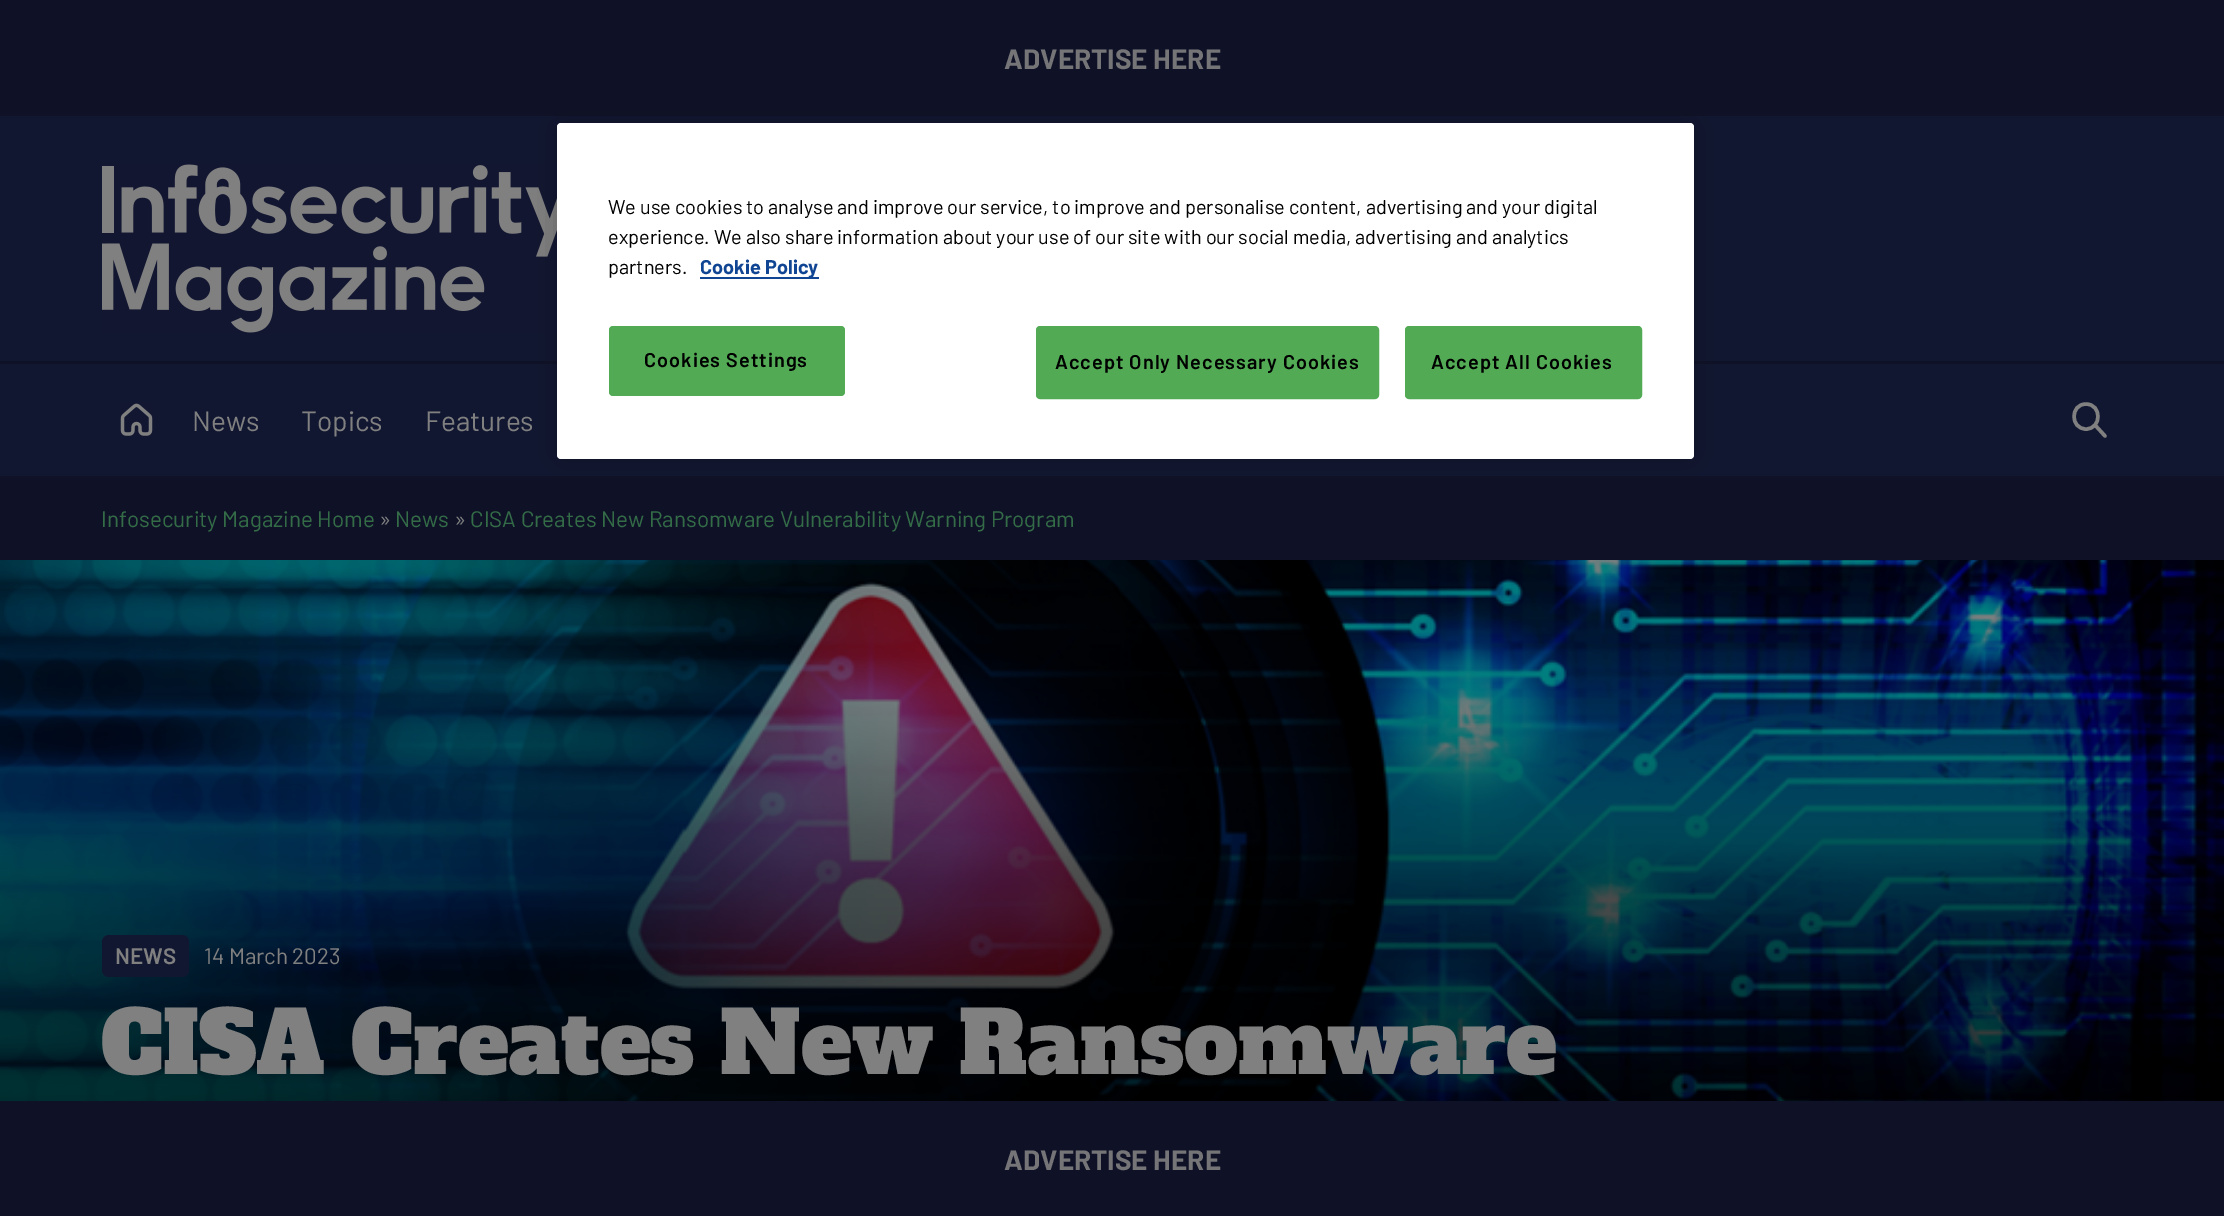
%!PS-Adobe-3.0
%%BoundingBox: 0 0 2224 1216
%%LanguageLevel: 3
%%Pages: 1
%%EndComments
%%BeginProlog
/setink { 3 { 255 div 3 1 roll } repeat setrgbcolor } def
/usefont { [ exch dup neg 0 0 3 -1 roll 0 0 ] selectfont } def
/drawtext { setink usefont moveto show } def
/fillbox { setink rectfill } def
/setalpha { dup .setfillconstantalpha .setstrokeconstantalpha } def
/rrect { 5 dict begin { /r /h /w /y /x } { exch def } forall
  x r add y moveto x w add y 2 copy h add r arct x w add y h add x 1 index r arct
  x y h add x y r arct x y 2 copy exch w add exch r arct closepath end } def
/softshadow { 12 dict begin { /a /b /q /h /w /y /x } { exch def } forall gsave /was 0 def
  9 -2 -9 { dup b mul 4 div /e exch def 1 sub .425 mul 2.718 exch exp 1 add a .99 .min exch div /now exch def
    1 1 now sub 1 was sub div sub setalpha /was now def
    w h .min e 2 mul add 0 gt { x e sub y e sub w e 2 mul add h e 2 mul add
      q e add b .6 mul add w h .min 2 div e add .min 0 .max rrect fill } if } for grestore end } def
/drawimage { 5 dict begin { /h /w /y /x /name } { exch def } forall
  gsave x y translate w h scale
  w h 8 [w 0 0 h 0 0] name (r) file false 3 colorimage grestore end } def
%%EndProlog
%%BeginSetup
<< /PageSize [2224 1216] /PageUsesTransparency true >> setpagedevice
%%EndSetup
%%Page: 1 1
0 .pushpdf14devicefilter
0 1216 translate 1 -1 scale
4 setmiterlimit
0 0 2224 1216 15 18 39 fillbox
(ADVERTISE HERE) 1004 69 /Barlow-Bold 28 117 117 120 drawtext
0 116 2224 245 18 23 49 fillbox
(assets/img1.rgb) 102 164 455 169 drawimage
0 364 2224 112 18 23 49 fillbox
0 0 0 setink
557 123 1137 336 4 16 0.2 softshadow
255 255 255 setink
557 123 1137 336 4 rrect fill
(We use cookies to analyse and improve our service, to improve and personalise content, advertising and your digital) 608 214 /Barlow-Regular 19.9 0 0 0 drawtext
(experience. We also share information about your use of our site with our social media, advertising and analytics) 608 244 /Barlow-Regular 19.9 0 0 0 drawtext
(partners.) 608 274 /Barlow-Regular 19.9 0 0 0 drawtext
700 277 119 2 16 69 147 fillbox
(Cookie Policy) 700 274 /Barlow-Bold 19.9 16 69 147 drawtext
82 170 85 setink
609 326 236 70 4 rrect fill
/Barlow-SemiBold 19.9 usefont
0 0 0 setink
644 367 moveto 1 0 (Cookies Settings) ashow
82 170 85 setink
1037 327 341 71 3 rrect gsave fill grestore
2 setlinewidth
stroke
0 0 0 setink
1055 369 moveto 1 0 (Accept Only Necessary Cookies) ashow
82 170 85 setink
1406 327 235 71 3 rrect gsave fill grestore
stroke
0 0 0 setink
1431 369 moveto 1 0 (Accept All Cookies) ashow
(assets/img2.rgb) 120 403 33 33 drawimage
(News) 192 431 /Barlow-Regular 28 128 128 128 drawtext
(Topics) 301 431 /Barlow-Regular 28 128 128 128 drawtext
(Features) 425 431 /Barlow-Regular 28 128 128 128 drawtext
3.5 setlinewidth
1 setlinecap
1 setlinejoin
2095 425 moveto 2105 436 lineto 2086 429 moveto 2070 429 2070 404 2086 404 curveto 2102 404 2102 429 2086 429 curveto closepath stroke
(Infosecurity Magazine Home) 101 527 /Barlow-Regular 22.4 51 108 71 drawtext
(») 379 527 /Barlow-Regular 22.4 128 128 128 drawtext
(News) 395 527 /Barlow-Regular 22.4 51 108 71 drawtext
(») 454 527 /Barlow-Regular 22.4 128 128 128 drawtext
(CISA Creates New Ransomware Vulnerability Warning Program) 470 527 /Barlow-Regular 22.4 51 108 71 drawtext
(assets/img3.rgb) 0 560 2224 541 drawimage
18 23 49 setink
102 935 87 42 7 rrect fill
(NEWS) 115 964 /Barlow-SemiBold 22.4 128 128 128 drawtext
(14 March 2023) 204 964 /Barlow-Regular 22.4 128 128 128 drawtext
(CISA Creates New Ransomware) 101 1074 /AlfaSlabOne-Regular 85.5 128 128 128 drawtext
(ADVERTISE HERE) 1004 1170 /Barlow-Bold 28 117 117 120 drawtext
.poppdf14devicefilter showpage
%%EOF
